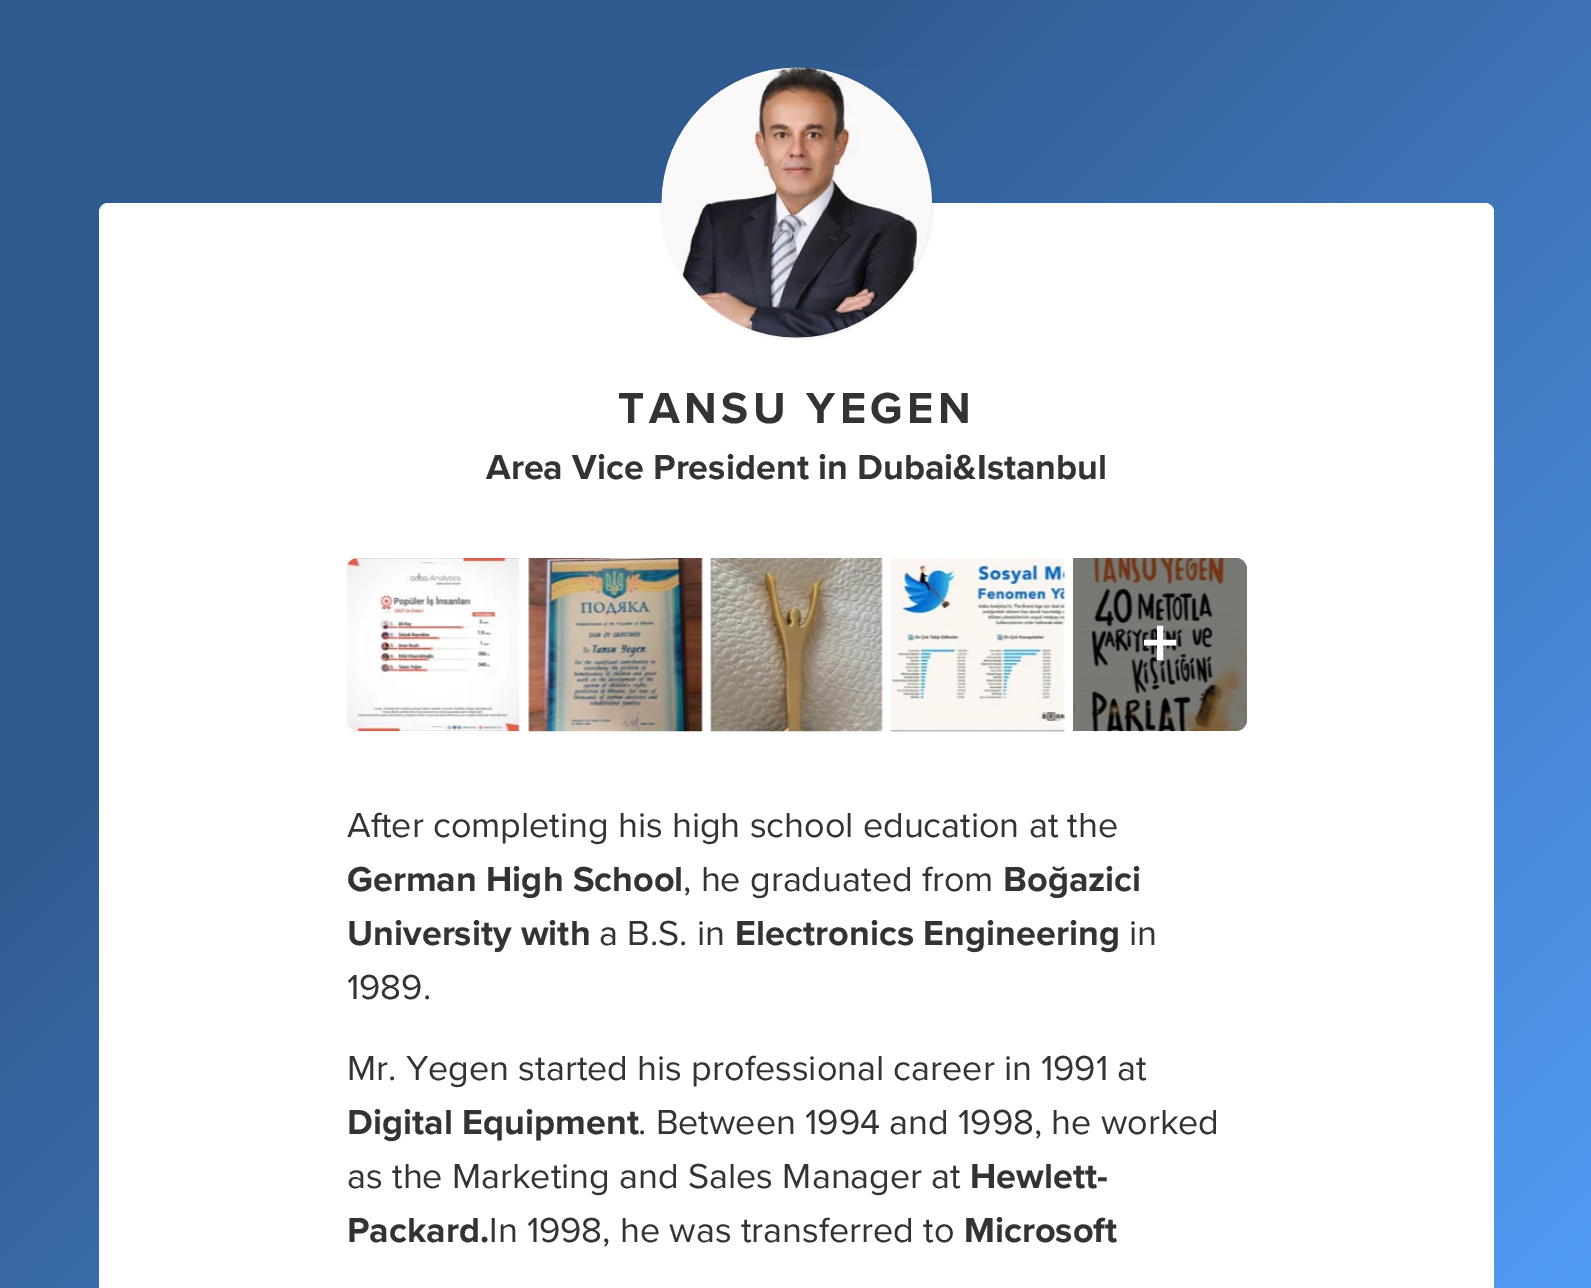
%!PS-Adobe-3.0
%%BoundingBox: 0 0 1591 1288
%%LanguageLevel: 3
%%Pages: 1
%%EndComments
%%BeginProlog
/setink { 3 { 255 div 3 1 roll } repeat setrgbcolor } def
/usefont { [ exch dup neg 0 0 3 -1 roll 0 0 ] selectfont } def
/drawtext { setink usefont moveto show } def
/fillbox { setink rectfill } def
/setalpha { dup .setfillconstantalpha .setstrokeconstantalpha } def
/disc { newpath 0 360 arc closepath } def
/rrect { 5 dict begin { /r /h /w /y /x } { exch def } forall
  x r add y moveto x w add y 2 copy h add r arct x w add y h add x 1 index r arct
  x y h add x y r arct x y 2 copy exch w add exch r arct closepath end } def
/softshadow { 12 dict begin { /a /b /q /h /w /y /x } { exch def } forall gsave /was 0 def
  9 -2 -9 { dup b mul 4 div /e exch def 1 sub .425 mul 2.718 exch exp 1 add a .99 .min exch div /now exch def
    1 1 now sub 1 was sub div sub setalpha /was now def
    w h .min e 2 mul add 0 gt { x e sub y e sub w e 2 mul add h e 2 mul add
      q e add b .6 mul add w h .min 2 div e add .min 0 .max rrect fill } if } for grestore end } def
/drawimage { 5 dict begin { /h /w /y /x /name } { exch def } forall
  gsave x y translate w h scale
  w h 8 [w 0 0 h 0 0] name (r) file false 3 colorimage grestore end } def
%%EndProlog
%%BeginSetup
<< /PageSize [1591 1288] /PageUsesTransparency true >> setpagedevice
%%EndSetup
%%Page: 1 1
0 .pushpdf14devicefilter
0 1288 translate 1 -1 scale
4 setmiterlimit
0 0 1591 1288 255 255 255 fillbox
gsave 0 0 moveto 1591 0 lineto 1591 1288 lineto 0 1288 lineto closepath clip newpath
<< /ShadingType 2 /ColorSpace /DeviceRGB /Coords [76 -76 1517 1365] /Extend [true true] /Function << /FunctionType 3 /Domain [0 1] /Functions [<< /FunctionType 2 /Domain [0 1] /C0 [0.188 0.357 0.565] /C1 [0.188 0.357 0.565] /N 1 >> << /FunctionType 2 /Domain [0 1] /C0 [0.188 0.357 0.565] /C1 [0.322 0.608 0.961] /N 1 >>] /Bounds [0.3] /Encode [0 1 0 1] >> >> shfill grestore
99 203 1395 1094 9 rrect fill
0 0 0 setink
662 68 270 270 135 2 0.1 softshadow
238 238 238 setink
797 203 135 disc fill
(assets/img1.rgb) 661 67 271 271 drawimage
/ProximaNova-Bold 45 usefont
51 51 51 setink
618 423 moveto 4.5 0 (TANSU YEGEN) ashow
(Area Vice President in Dubai&Istanbul) 486 479 /ProximaNova-Bold 36 51 51 51 drawtext
(assets/img2.rgb) 347 558 173 174 drawimage
(assets/img3.rgb) 528 558 175 174 drawimage
(assets/img4.rgb) 710 558 173 174 drawimage
(assets/img5.rgb) 890 558 175 174 drawimage
(assets/img6.rgb) 1073 558 174 174 drawimage
0.5 setalpha
0 0 0 setink
1073 558 moveto 1236 558 lineto 1242 558 1247 563 1247 569 curveto 1247 720 lineto 1247 726 1242 731 1236 731 curveto 1073 731 lineto closepath fill
1 setalpha
(+) 1142 667 /ProximaNova-Bold 72 255 255 255 drawtext
(After completing his high school education at the) 347 837 /ProximaNova-Regular 36 51 51 51 drawtext
(German High School) 347 891 /ProximaNova-Bold 36 51 51 51 drawtext
(, he graduated from) 683 891 /ProximaNova-Regular 36 51 51 51 drawtext
(Boğazici) 1003 891 /ProximaNova-Bold 36 51 51 51 drawtext
(University with) 347 945 /ProximaNova-Bold 36 51 51 51 drawtext
(a B.S. in) 599 945 /ProximaNova-Regular 36 51 51 51 drawtext
(Electronics Engineering) 735 945 /ProximaNova-Bold 36 51 51 51 drawtext
(in) 1129 945 /ProximaNova-Regular 36 51 51 51 drawtext
(1989.) 347 999 /ProximaNova-Regular 36 51 51 51 drawtext
(Mr. Yegen started his professional career in 1991 at) 347 1080 /ProximaNova-Regular 36 51 51 51 drawtext
(Digital Equipment) 347 1134 /ProximaNova-Bold 36 51 51 51 drawtext
(. Between 1994 and 1998, he worked) 638 1134 /ProximaNova-Regular 36 51 51 51 drawtext
(as the Marketing and Sales Manager at) 347 1188 /ProximaNova-Regular 36 51 51 51 drawtext
(Hewlett-) 970 1188 /ProximaNova-Bold 36 51 51 51 drawtext
(Packard.) 347 1242 /ProximaNova-Bold 36 51 51 51 drawtext
(In 1998, he was transferred to) 489 1242 /ProximaNova-Regular 36 51 51 51 drawtext
(Microsoft) 964 1242 /ProximaNova-Bold 36 51 51 51 drawtext
.poppdf14devicefilter showpage
%%EOF
